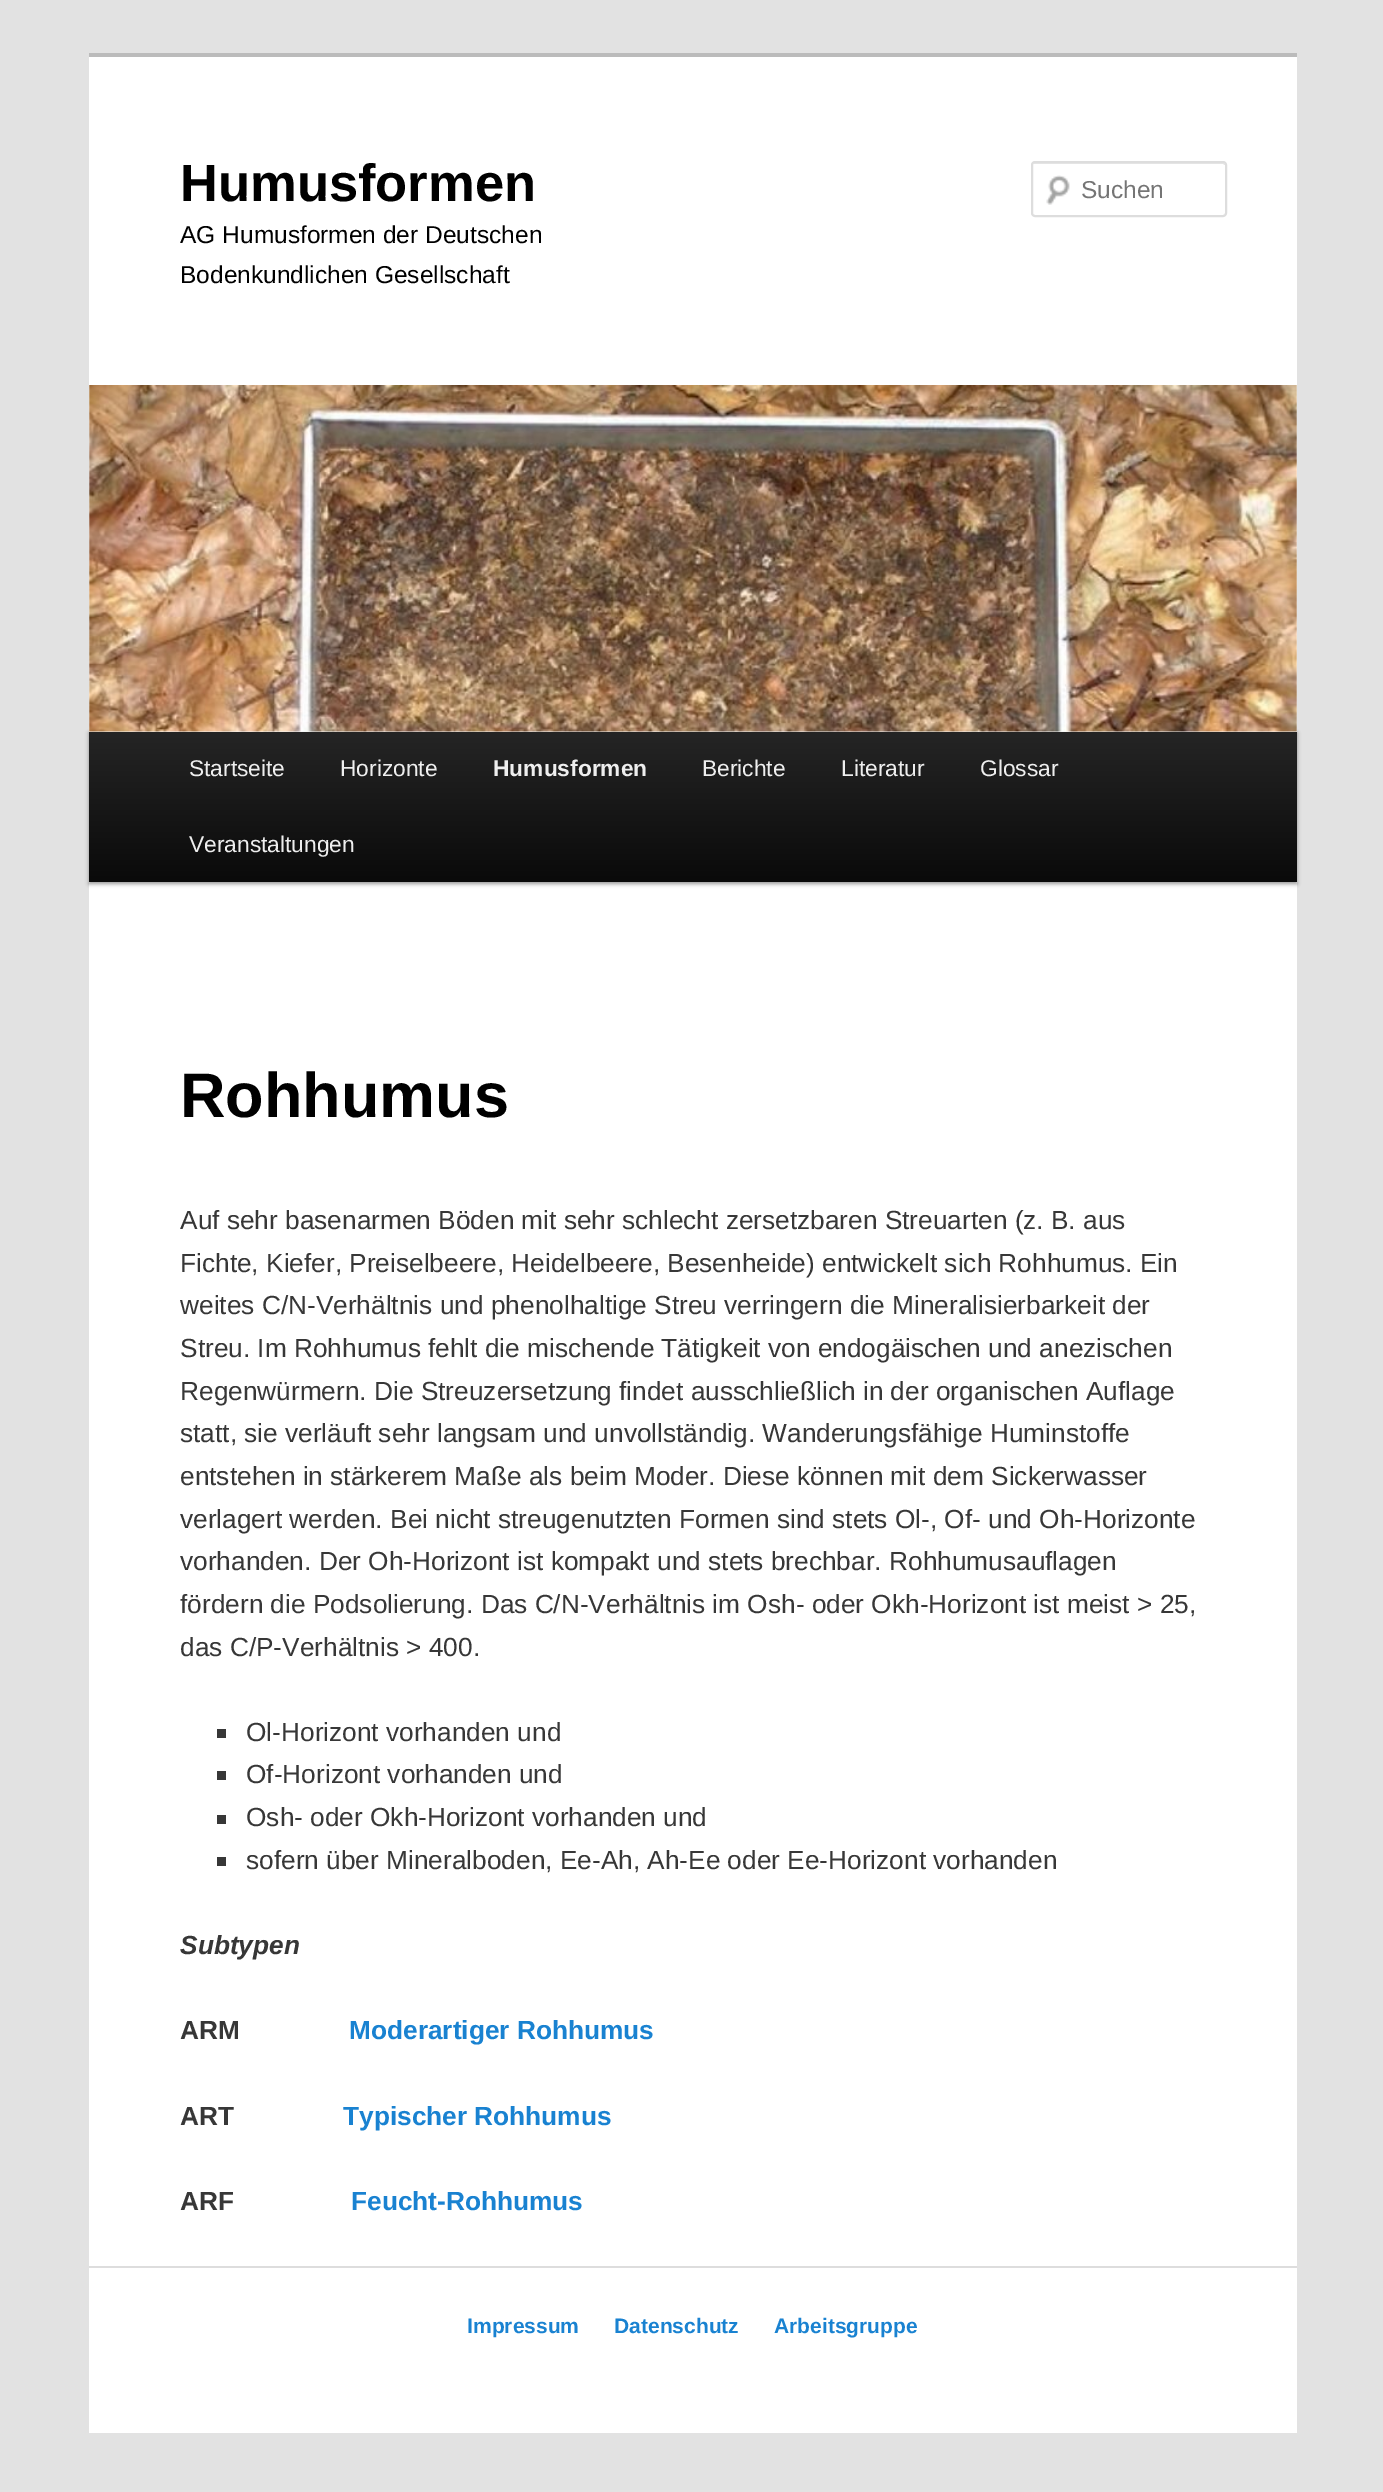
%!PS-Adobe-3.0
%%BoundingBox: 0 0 1383 2492
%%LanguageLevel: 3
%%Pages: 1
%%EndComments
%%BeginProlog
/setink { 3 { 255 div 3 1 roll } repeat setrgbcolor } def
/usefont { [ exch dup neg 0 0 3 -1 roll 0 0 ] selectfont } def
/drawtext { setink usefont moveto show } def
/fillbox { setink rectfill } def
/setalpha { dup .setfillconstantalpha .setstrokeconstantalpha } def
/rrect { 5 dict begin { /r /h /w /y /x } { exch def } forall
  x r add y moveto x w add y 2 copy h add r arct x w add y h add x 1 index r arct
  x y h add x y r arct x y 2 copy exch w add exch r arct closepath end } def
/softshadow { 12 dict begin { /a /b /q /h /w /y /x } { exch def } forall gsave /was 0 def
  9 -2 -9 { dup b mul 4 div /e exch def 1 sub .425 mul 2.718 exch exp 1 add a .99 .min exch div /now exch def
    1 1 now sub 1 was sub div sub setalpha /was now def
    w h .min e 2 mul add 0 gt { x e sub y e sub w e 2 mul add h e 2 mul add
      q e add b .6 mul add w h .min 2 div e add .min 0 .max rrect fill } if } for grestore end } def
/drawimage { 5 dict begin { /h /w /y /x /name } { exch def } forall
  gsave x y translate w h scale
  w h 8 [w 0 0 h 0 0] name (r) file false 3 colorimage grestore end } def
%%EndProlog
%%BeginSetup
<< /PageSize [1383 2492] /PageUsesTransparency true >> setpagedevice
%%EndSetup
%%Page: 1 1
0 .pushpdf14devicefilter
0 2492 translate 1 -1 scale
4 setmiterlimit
0 0 1383 2492 226 226 226 fillbox
89 57 1208 2376 255 255 255 fillbox
89 53 1208 4 187 187 187 fillbox
(Humusformen) 180 201 /LiberationSans-Bold 52.5 0 0 0 drawtext
(AG Humusformen der Deutschen) 180 243 /LiberationSans-Regular 24.5 0 0 0 drawtext
(Bodenkundlichen Gesellschaft) 180 283 /LiberationSans-Regular 24.5 0 0 0 drawtext
(assets/img1.rgb) 1046 175 24 30 drawimage
230 230 230 setink
1034 164 moveto 1223 164 lineto 1225 165 lineto 1225 166 lineto 1225 165 lineto 1225 164 1224 163 1223 163 curveto 1035 163 lineto 1034 163 1033 164 1033 164 curveto closepath fill
221 221 221 setink
2 setlinewidth
1032 162 194 54 3 rrect stroke
(Suchen) 1081 198 /LiberationSans-Regular 24.5 117 117 117 drawtext
0 0 0 setink
89 733 1208 151 0 2 0.4 softshadow
(assets/img2.rgb) 89 385 1208 347 drawimage
gsave 89 732 moveto 1297 732 lineto 1297 882 lineto 89 882 lineto closepath clip newpath
<< /ShadingType 2 /ColorSpace /DeviceRGB /Coords [693 731 693 882] /Extend [true true] /Function << /FunctionType 2 /Domain [0 1] /C0 [0.145 0.145 0.145] /C1 [0.039 0.039 0.039] /N 1 >> >> shfill grestore
(Startseite) 189 776 /LiberationSans-Regular 22.75 238 238 238 drawtext
(Horizonte) 340 776 /LiberationSans-Regular 22.75 238 238 238 drawtext
(Humusformen) 493 776 /LiberationSans-Bold 22.75 238 238 238 drawtext
(Berichte) 702 776 /LiberationSans-Regular 22.75 238 238 238 drawtext
(Literatur) 841 776 /LiberationSans-Regular 22.75 238 238 238 drawtext
(Glossar) 980 776 /LiberationSans-Regular 22.75 238 238 238 drawtext
(Veranstaltungen) 189 852 /LiberationSans-Regular 22.75 238 238 238 drawtext
(Rohhumus) 180 1117 /LiberationSans-Bold 63 0 0 0 drawtext
(Auf sehr basenarmen Böden mit sehr schlecht zersetzbaren Streuarten \(z. B. aus) 180 1229 /LiberationSans-Regular 26.25 55 55 55 drawtext
(Fichte, Kiefer, Preiselbeere, Heidelbeere, Besenheide\) entwickelt sich Rohhumus. Ein) 180 1272 /LiberationSans-Regular 26.25 55 55 55 drawtext
(weites C/N-Verhältnis und phenolhaltige Streu verringern die Mineralisierbarkeit der) 180 1314 /LiberationSans-Regular 26.25 55 55 55 drawtext
(Streu. Im Rohhumus fehlt die mischende Tätigkeit von endogäischen und anezischen) 180 1357 /LiberationSans-Regular 26.25 55 55 55 drawtext
(Regenwürmern. Die Streuzersetzung findet ausschließlich in der organischen Auflage) 180 1400 /LiberationSans-Regular 26.25 55 55 55 drawtext
(statt, sie verläuft sehr langsam und unvollständig. Wanderungsfähige Huminstoffe) 180 1442 /LiberationSans-Regular 26.25 55 55 55 drawtext
(entstehen in stärkerem Maße als beim Moder. Diese können mit dem Sickerwasser) 180 1485 /LiberationSans-Regular 26.25 55 55 55 drawtext
(verlagert werden. Bei nicht streugenutzten Formen sind stets Ol-, Of- und Oh-Horizonte) 180 1528 /LiberationSans-Regular 26.25 55 55 55 drawtext
(vorhanden. Der Oh-Horizont ist kompakt und stets brechbar. Rohhumusauflagen) 180 1570 /LiberationSans-Regular 26.25 55 55 55 drawtext
(fördern die Podsolierung. Das C/N-Verhältnis im Osh- oder Okh-Horizont ist meist > 25,) 180 1613 /LiberationSans-Regular 26.25 55 55 55 drawtext
(das C/P-Verhältnis > 400.) 180 1656 /LiberationSans-Regular 26.25 55 55 55 drawtext
217 1729 9 9 55 55 55 fillbox
(Ol-Horizont vorhanden und) 246 1741 /LiberationSans-Regular 26.25 55 55 55 drawtext
217 1771 9 9 55 55 55 fillbox
(Of-Horizont vorhanden und) 246 1783 /LiberationSans-Regular 26.25 55 55 55 drawtext
217 1815 9 9 55 55 55 fillbox
(Osh- oder Okh-Horizont vorhanden und) 246 1826 /LiberationSans-Regular 26.25 55 55 55 drawtext
217 1857 9 9 55 55 55 fillbox
(sofern über Mineralboden, Ee-Ah, Ah-Ee oder Ee-Horizont vorhanden) 246 1869 /LiberationSans-Regular 26.25 55 55 55 drawtext
(Subtypen) 180 1954 /LiberationSans-BoldItalic 26.25 55 55 55 drawtext
(ARM) 180 2039 /LiberationSans-Bold 26.25 55 55 55 drawtext
(Moderartiger Rohhumus) 349 2039 /LiberationSans-Bold 26.25 25 130 209 drawtext
(ART) 180 2125 /LiberationSans-Bold 26.25 55 55 55 drawtext
(Typischer Rohhumus) 343 2125 /LiberationSans-Bold 26.25 25 130 209 drawtext
(ARF) 180 2210 /LiberationSans-Bold 26.25 55 55 55 drawtext
(Feucht-Rohhumus) 351 2210 /LiberationSans-Bold 26.25 25 130 209 drawtext
89 2266 1208 2 221 221 221 fillbox
(Impressum) 467 2333 /LiberationSans-Bold 21 25 130 209 drawtext
(Datenschutz) 614 2333 /LiberationSans-Bold 21 25 130 209 drawtext
(Arbeitsgruppe) 774 2333 /LiberationSans-Bold 21 25 130 209 drawtext
.poppdf14devicefilter showpage
%%EOF
